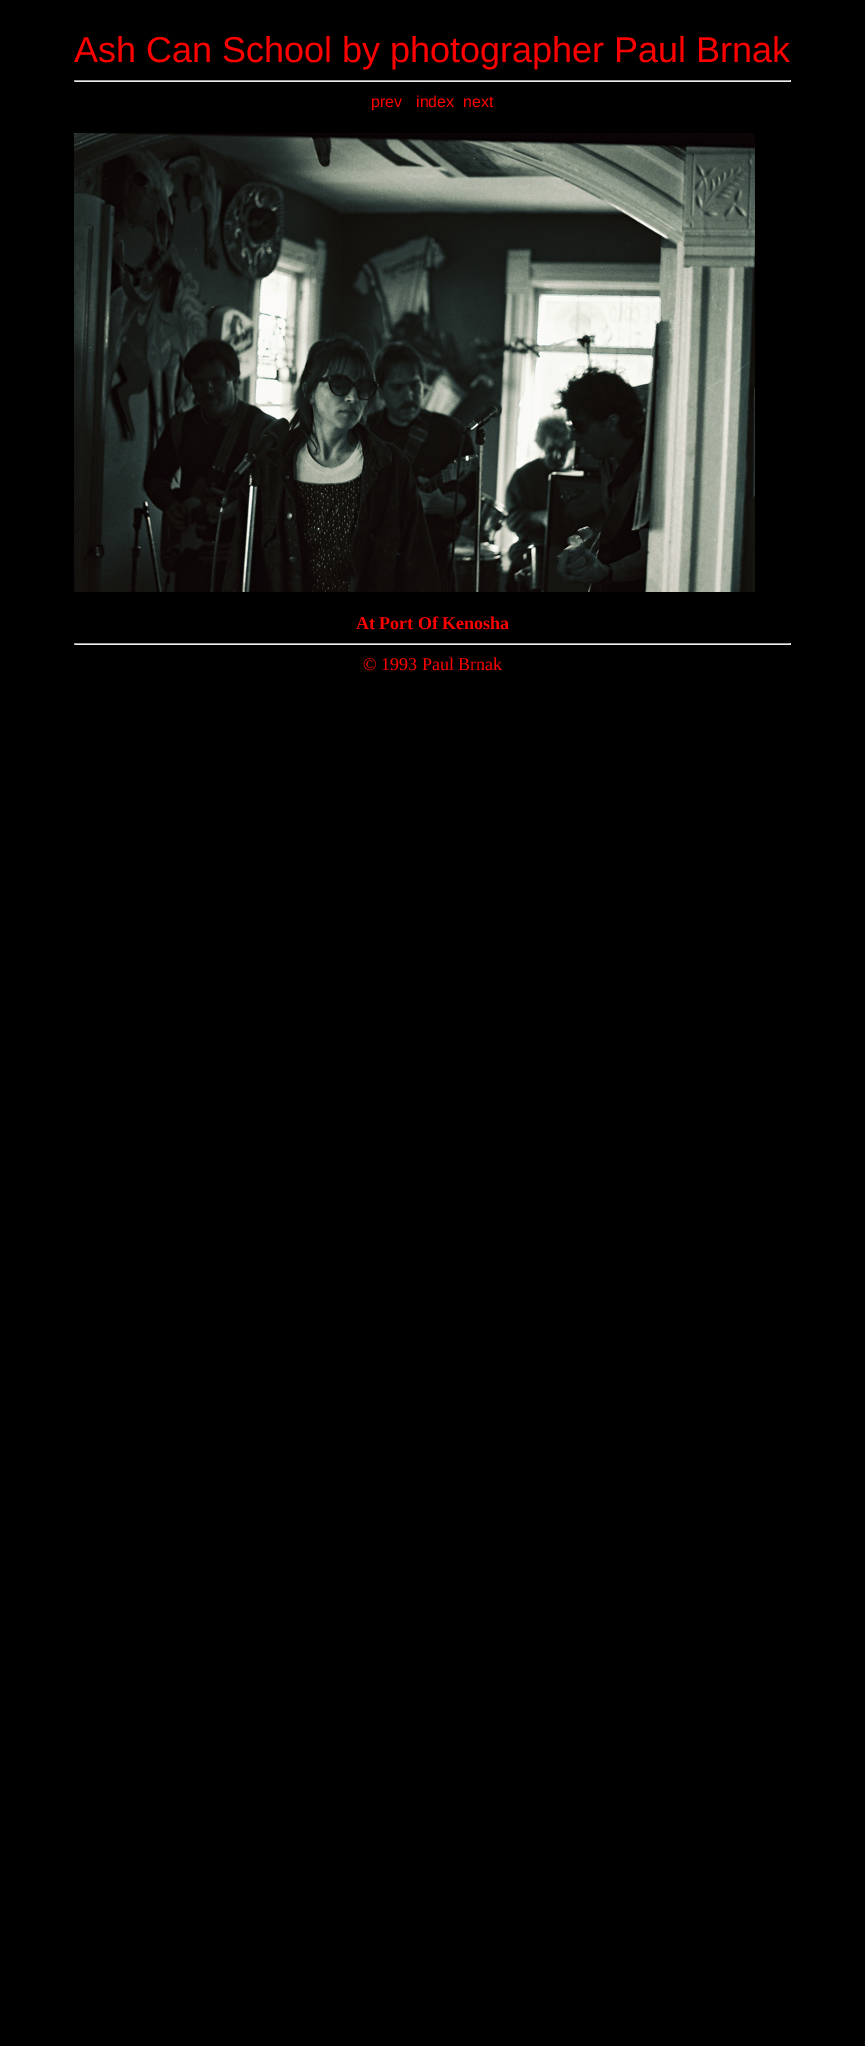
%!PS-Adobe-3.0
%%BoundingBox: 0 0 865 2046
%%LanguageLevel: 3
%%Pages: 1
%%EndComments
%%BeginProlog
/setink { 3 { 255 div 3 1 roll } repeat setrgbcolor } def
/usefont { [ exch dup neg 0 0 3 -1 roll 0 0 ] selectfont } def
/drawtext { setink usefont moveto show } def
/fillbox { setink rectfill } def
/drawimage { 5 dict begin { /h /w /y /x /name } { exch def } forall
  gsave x y translate w h scale
  w h 8 [w 0 0 h 0 0] name (r) file false 3 colorimage grestore end } def
%%EndProlog
%%BeginSetup
<< /PageSize [865 2046] >> setpagedevice
%%EndSetup
%%Page: 1 1
0 2046 translate 1 -1 scale
4 setmiterlimit
0 0 865 2046 0 0 0 fillbox
(Ash Can School by photographer Paul Brnak) 74 62 /LiberationSans-Regular 36 255 0 0 drawtext
74 80 717 1 159 159 159 fillbox
790 80 1 2 238 238 238 fillbox
74 81 717 1 238 238 238 fillbox
74 80 1 2 159 159 159 fillbox
(prev) 371 107 /LiberationSans-Regular 16 255 0 0 drawtext
(index) 416 107 /LiberationSans-Regular 16 255 0 0 drawtext
(next) 463 107 /LiberationSans-Regular 16 255 0 0 drawtext
(assets/img1.rgb) 74 133 681 459 drawimage
(At Port Of Kenosha) 356 629 /LiberationSerif-Bold 18 255 0 0 drawtext
74 643 717 1 159 159 159 fillbox
790 643 1 2 238 238 238 fillbox
74 644 717 1 238 238 238 fillbox
74 643 1 2 159 159 159 fillbox
(© 1993 Paul Brnak) 363 670 /LiberationSerif-Regular 18 255 0 0 drawtext
showpage
%%EOF
